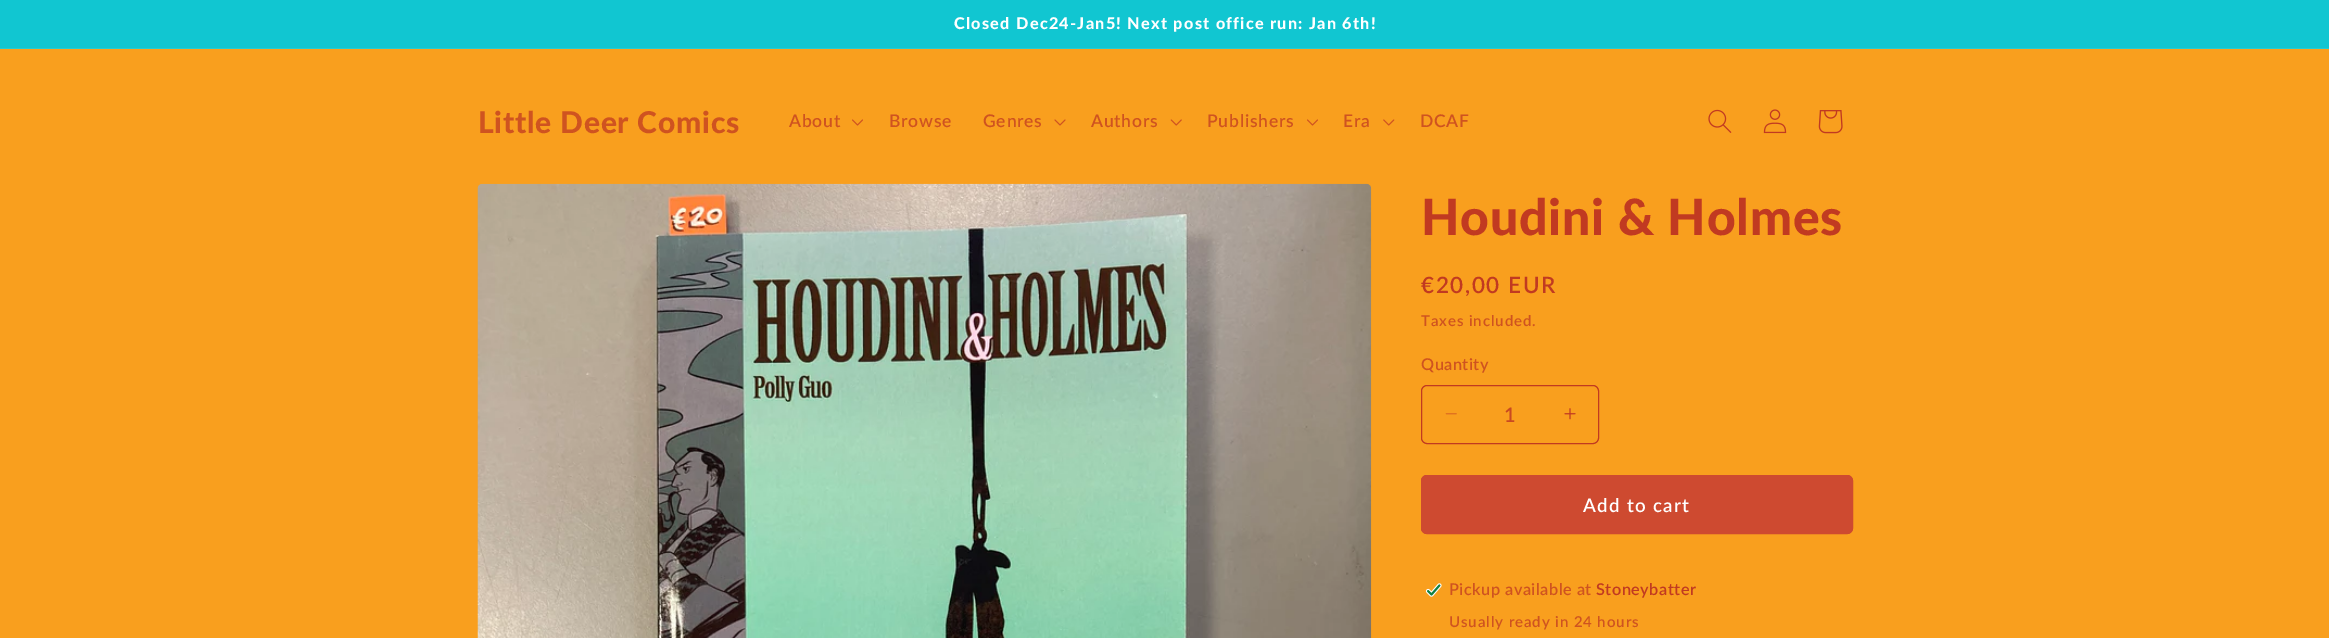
%!PS-Adobe-3.0
%%BoundingBox: 0 0 2329 638
%%LanguageLevel: 3
%%Pages: 1
%%EndComments
%%BeginProlog
/setink { 3 { 255 div 3 1 roll } repeat setrgbcolor } def
/usefont { [ exch dup neg 0 0 3 -1 roll 0 0 ] selectfont } def
/drawtext { setink usefont moveto show } def
/fillbox { setink rectfill } def
/rrect { 5 dict begin { /r /h /w /y /x } { exch def } forall
  x r add y moveto x w add y 2 copy h add r arct x w add y h add x 1 index r arct
  x y h add x y r arct x y 2 copy exch w add exch r arct closepath end } def
/drawimage { 5 dict begin { /h /w /y /x /name } { exch def } forall
  gsave x y translate w h scale
  w h 8 [w 0 0 h 0 0] name (r) file false 3 colorimage grestore end } def
%%EndProlog
%%BeginSetup
<< /PageSize [2329 638] >> setpagedevice
%%EndSetup
%%Page: 1 1
0 638 translate 1 -1 scale
4 setmiterlimit
0 0 2329 638 249 159 30 fillbox
0 0 2329 48 17 198 209 fillbox
0 48 2329 1 36 203 213 fillbox
/Lato-Black 16.25 usefont
255 255 255 setink
954 29 moveto 1.25 0 (Closed Dec24-Jan5! Next post office run: Jan 6th!) ashow
/Lato-Black 30 usefont
207 83 32 setink
478 133 moveto 0.75 0 (Little Deer Comics) ashow
/Lato-SemiBold 17.5 usefont
789 127 moveto 0.75 0 (About) ashow
(assets/img1.rgb) 852 119 11 7 drawimage
889 127 moveto 0.75 0 (Browse) ashow
983 127 moveto 0.75 0 (Genres) ashow
(assets/img2.rgb) 1054 119 12 7 drawimage
1091 127 moveto 0.75 0 (Authors) ashow
(assets/img3.rgb) 1170 119 12 7 drawimage
1207 127 moveto 0.75 0 (Publishers) ashow
(assets/img1.rgb) 1307 119 11 7 drawimage
1343 127 moveto 0.75 0 (Era) ashow
(assets/img4.rgb) 1383 119 12 7 drawimage
1420 127 moveto 0.75 0 (DCAF) ashow
(assets/img5.rgb) 1708 109 24 24 drawimage
(assets/img6.rgb) 1763 109 24 25 drawimage
(assets/img7.rgb) 1818 110 25 24 drawimage
(assets/img8.rgb) 477 183 895 455 drawimage
/Lato-Black 50 usefont
193 58 33 setink
1421 235 moveto 0.75 0 (Houdini & Holmes) ashow
/Lato-SemiBold 22.5 usefont
1421 293 moveto 1.6 0 (€20,00 EUR) ashow
/Lato-SemiBold 15 usefont
207 83 32 setink
1421 326 moveto 0.9 0 (Taxes included.) ashow
/Lato-SemiBold 16.25 usefont
1421 370 moveto 0.5 0 (Quantity) ashow
(assets/img9.rgb) 1445 413 12 2 drawimage
(assets/img10.rgb) 1564 408 12 12 drawimage
193 58 33 setink
1421.5 385.5 177 58 5.5 rrect stroke
(1) 1504 422 /Lato-SemiBold 20 201 73 33 drawtext
206 74 48 setink
1421 475 432 59 6 rrect fill
1421.5 475.5 431 58 5.5 rrect stroke
/Lato-SemiBold 18.75 usefont
255 255 255 setink
1583 512 moveto 1.25 0 (Add to cart) ashow
(assets/img11.rgb) 1425 583 17 14 drawimage
/Lato-SemiBold 16.25 usefont
207 83 32 setink
1449 595 moveto 0.5 0 (Pickup available at) ashow
193 58 33 setink
1596 595 moveto 0.5 0 (Stoneybatter) ashow
/Lato-SemiBold 15 usefont
207 83 32 setink
1449 627 moveto 0.9 0 (Usually ready in 24 hours) ashow
showpage
%%EOF
